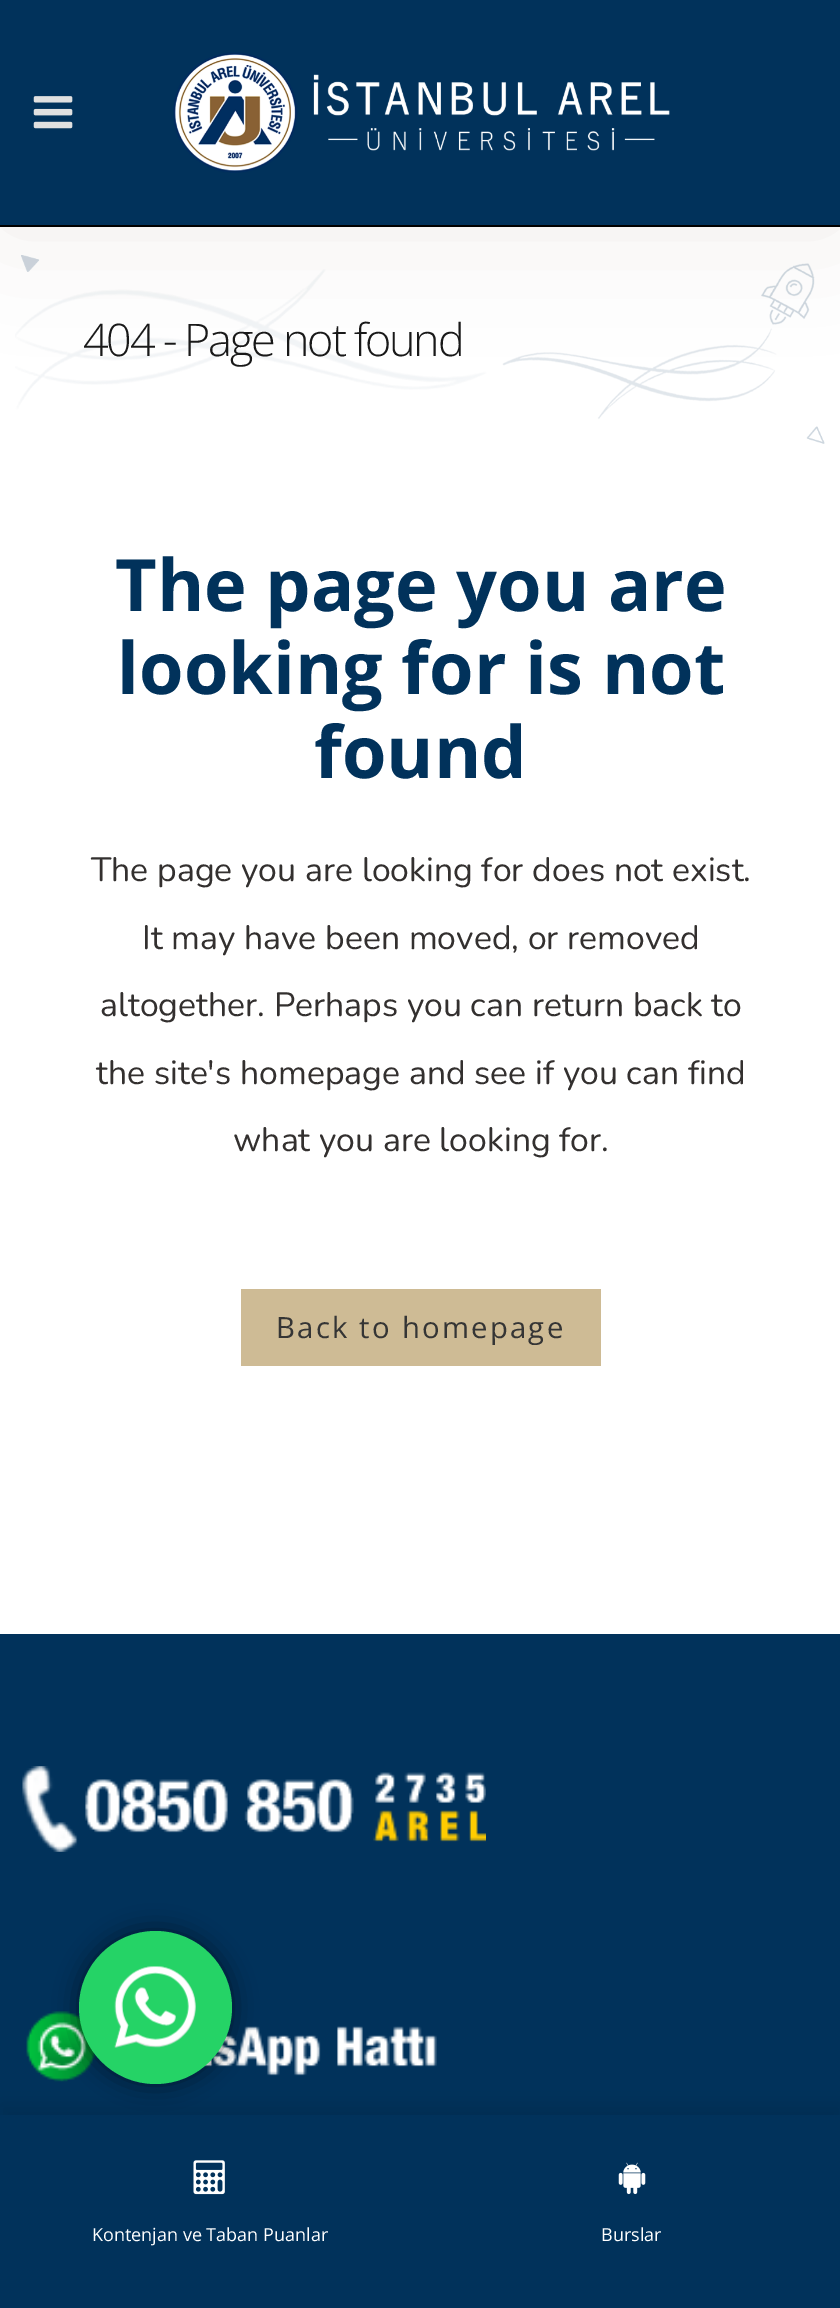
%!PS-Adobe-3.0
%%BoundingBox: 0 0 840 2308
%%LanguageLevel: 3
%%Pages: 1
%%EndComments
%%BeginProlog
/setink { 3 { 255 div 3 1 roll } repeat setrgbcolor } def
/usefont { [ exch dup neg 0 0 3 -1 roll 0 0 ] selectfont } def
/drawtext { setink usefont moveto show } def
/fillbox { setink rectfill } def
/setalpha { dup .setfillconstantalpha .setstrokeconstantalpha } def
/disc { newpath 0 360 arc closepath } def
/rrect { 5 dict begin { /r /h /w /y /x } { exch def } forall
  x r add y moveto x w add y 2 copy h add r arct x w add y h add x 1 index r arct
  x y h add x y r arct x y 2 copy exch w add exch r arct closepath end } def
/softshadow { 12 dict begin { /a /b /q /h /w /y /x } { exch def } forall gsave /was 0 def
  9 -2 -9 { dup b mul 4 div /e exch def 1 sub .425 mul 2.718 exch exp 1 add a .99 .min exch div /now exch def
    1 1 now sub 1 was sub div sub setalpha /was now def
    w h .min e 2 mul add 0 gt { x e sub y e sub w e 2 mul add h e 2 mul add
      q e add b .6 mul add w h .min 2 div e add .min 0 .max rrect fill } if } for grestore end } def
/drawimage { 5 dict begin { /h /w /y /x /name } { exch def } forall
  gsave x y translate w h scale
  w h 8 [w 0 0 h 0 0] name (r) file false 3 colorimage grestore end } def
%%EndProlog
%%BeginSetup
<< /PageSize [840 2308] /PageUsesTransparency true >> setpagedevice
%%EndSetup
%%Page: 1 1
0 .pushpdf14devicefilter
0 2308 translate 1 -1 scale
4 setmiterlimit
0 0 840 2308 255 255 255 fillbox
(assets/img3.rgb) 15 255 810 189 drawimage
79 57 37 setink
0 0 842 227 0 57.5 0.09 softshadow
0 0 840 225 1 50 91 fillbox
0 225 840 2 0 0 0 fillbox
(assets/img1.rgb) 33 96 40 33 drawimage
(assets/img2.rgb) 173 52 497 121 drawimage
/OpenSans-Light 45 usefont
25 25 25 setink
83 356 moveto -2.25 0 (404 - Page not found) ashow
(The page you are) 115 611 /OpenSans-Bold 72 1 50 91 drawtext
(looking for is not) 117 694 /OpenSans-Bold 72 1 50 91 drawtext
(found) 314 778 /OpenSans-Bold 72 1 50 91 drawtext
(The page you are looking for does not exist.) 91 881 /Nunito-Regular 33.75 51 48 47 drawtext
(It may have been moved, or removed) 142 949 /Nunito-Regular 33.75 51 48 47 drawtext
(altogether. Perhaps you can return back to) 100 1016 /Nunito-Regular 33.75 51 48 47 drawtext
(the site's homepage and see if you can find) 96 1084 /Nunito-Regular 33.75 51 48 47 drawtext
(what you are looking for.) 233 1151 /Nunito-Regular 33.75 51 48 47 drawtext
241 1289 360 77 206 187 149 fillbox
/OpenSans-Regular 29.25 usefont
53 53 53 setink
276 1338 moveto 2.25 0 (Back to homepage) ashow
0 1634 840 481 1 50 91 fillbox
(assets/img4.rgb) 22 1766 464 86 drawimage
(assets/img5.rgb) 26 2011 411 71 drawimage
0 0 0 setink
0 2104 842 193 0 11 0.1 softshadow
0 2115 840 193 1 50 91 fillbox
0 0 0 setink
79 1931 153 153 76.5 12.5 0.5 softshadow
37 211 102 setink
155.5 2007.5 76.5 disc fill
(assets/img6.rgb) 114 1966 82 82 drawimage
(assets/img7.rgb) 193 2160 32 35 drawimage
(Kontenjan ve Taban Puanlar) 92 2241 /OpenSans-Regular 18 255 255 255 drawtext
(assets/img8.rgb) 618 2162 28 33 drawimage
(Burslar) 601 2241 /OpenSans-Regular 18 255 255 255 drawtext
.poppdf14devicefilter showpage
%%EOF
